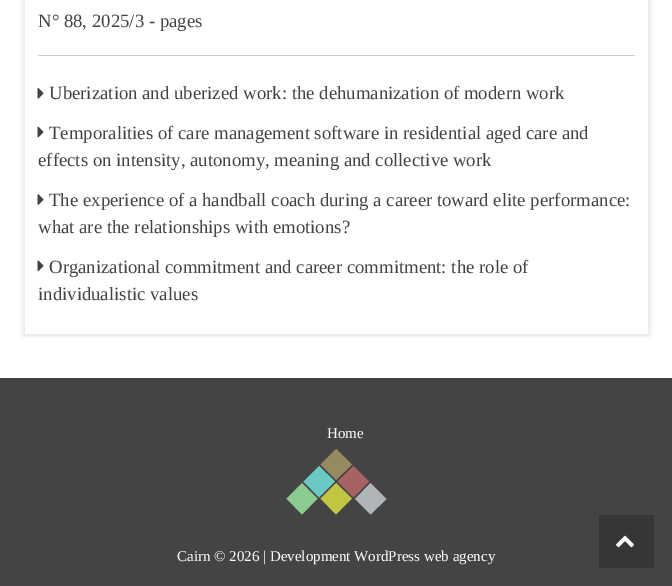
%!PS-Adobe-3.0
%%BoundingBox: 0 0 672 586
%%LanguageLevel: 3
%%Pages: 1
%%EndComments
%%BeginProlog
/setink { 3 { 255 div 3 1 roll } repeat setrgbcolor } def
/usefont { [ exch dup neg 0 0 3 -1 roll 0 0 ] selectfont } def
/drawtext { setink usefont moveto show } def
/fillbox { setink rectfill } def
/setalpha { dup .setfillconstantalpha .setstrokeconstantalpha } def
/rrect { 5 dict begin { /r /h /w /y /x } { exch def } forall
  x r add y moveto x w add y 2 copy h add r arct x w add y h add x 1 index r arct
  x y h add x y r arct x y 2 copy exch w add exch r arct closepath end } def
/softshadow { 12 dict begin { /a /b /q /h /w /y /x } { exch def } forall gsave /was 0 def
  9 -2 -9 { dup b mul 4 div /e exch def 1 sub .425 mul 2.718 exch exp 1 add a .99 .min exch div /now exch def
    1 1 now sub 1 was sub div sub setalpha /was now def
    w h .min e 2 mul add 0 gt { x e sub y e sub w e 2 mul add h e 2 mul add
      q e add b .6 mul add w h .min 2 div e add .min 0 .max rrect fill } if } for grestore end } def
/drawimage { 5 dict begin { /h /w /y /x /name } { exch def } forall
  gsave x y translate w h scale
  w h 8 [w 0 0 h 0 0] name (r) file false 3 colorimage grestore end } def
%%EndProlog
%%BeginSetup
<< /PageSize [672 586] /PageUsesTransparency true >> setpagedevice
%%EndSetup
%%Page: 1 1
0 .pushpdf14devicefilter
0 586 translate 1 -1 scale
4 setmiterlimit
0 0 672 586 255 255 255 fillbox
gsave
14 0 moveto 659 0 lineto 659 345 lineto 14 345 lineto closepath 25 -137 moveto 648 -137 lineto 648 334 lineto 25 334 lineto closepath eoclip newpath
0 0 0 setink
23 -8 627 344 0 2.5 0.1 softshadow
grestore
0.75 setalpha
25 0 623 334 255 255 255 fillbox
1 setalpha
38 55 597 1 205 205 205 fillbox
(N° 88, 2025/3 - pages) 38 27 /LiberationSerif-Regular 18.75 66 66 66 drawtext
(assets/img1.rgb) 37 88 7 11 drawimage
(Uberization and uberized work: the dehumanization of modern work) 49 99 /LiberationSerif-Regular 18.75 66 66 66 drawtext
(assets/img2.rgb) 37 126 7 12 drawimage
(Temporalities of care management software in residential aged care and) 49 139 /LiberationSerif-Regular 18.75 66 66 66 drawtext
(effects on intensity, autonomy, meaning and collective work) 38 166 /LiberationSerif-Regular 18.75 66 66 66 drawtext
(assets/img3.rgb) 37 194 7 11 drawimage
(The experience of a handball coach during a career toward elite performance:) 49 206 /LiberationSerif-Regular 18.75 66 66 66 drawtext
(what are the relationships with emotions?) 38 233 /LiberationSerif-Regular 18.75 66 66 66 drawtext
(assets/img4.rgb) 37 260 7 12 drawimage
(Organizational commitment and career commitment: the role of) 49 273 /LiberationSerif-Regular 18.75 66 66 66 drawtext
(individualistic values) 38 300 /LiberationSerif-Regular 18.75 66 66 66 drawtext
0 378 672 208 68 68 68 fillbox
177 181 183 setink
370.5 483 moveto 386.5 499 lineto 370.5 514.5 lineto 355 499 lineto closepath fill
169 98 99 setink
353.5 466 moveto 369 481.5 lineto 353.5 497.5 lineto 337.5 481.5 lineto closepath fill
193 197 66 setink
336 483 moveto 352 498.5 lineto 336 514.5 lineto 320.5 498.5 lineto closepath fill
150 138 97 setink
336 449 moveto 352 464.5 lineto 336 480 lineto 320.5 464.5 lineto closepath fill
107 200 196 setink
319 466 moveto 335 481.5 lineto 319 497.5 lineto 303.5 481.5 lineto closepath fill
139 203 144 setink
302 483 moveto 317.5 498.5 lineto 302 514.5 lineto 286.5 498.5 lineto closepath fill
(Home) 327 438 /LiberationSerif-Regular 15 255 255 255 drawtext
(Cairn © 2026 | Development WordPress web agency) 177 561 /LiberationSerif-Regular 15 255 255 255 drawtext
599 515 55 53 54 54 54 fillbox
(assets/img5.rgb) 616 535 18 13 drawimage
.poppdf14devicefilter showpage
%%EOF
